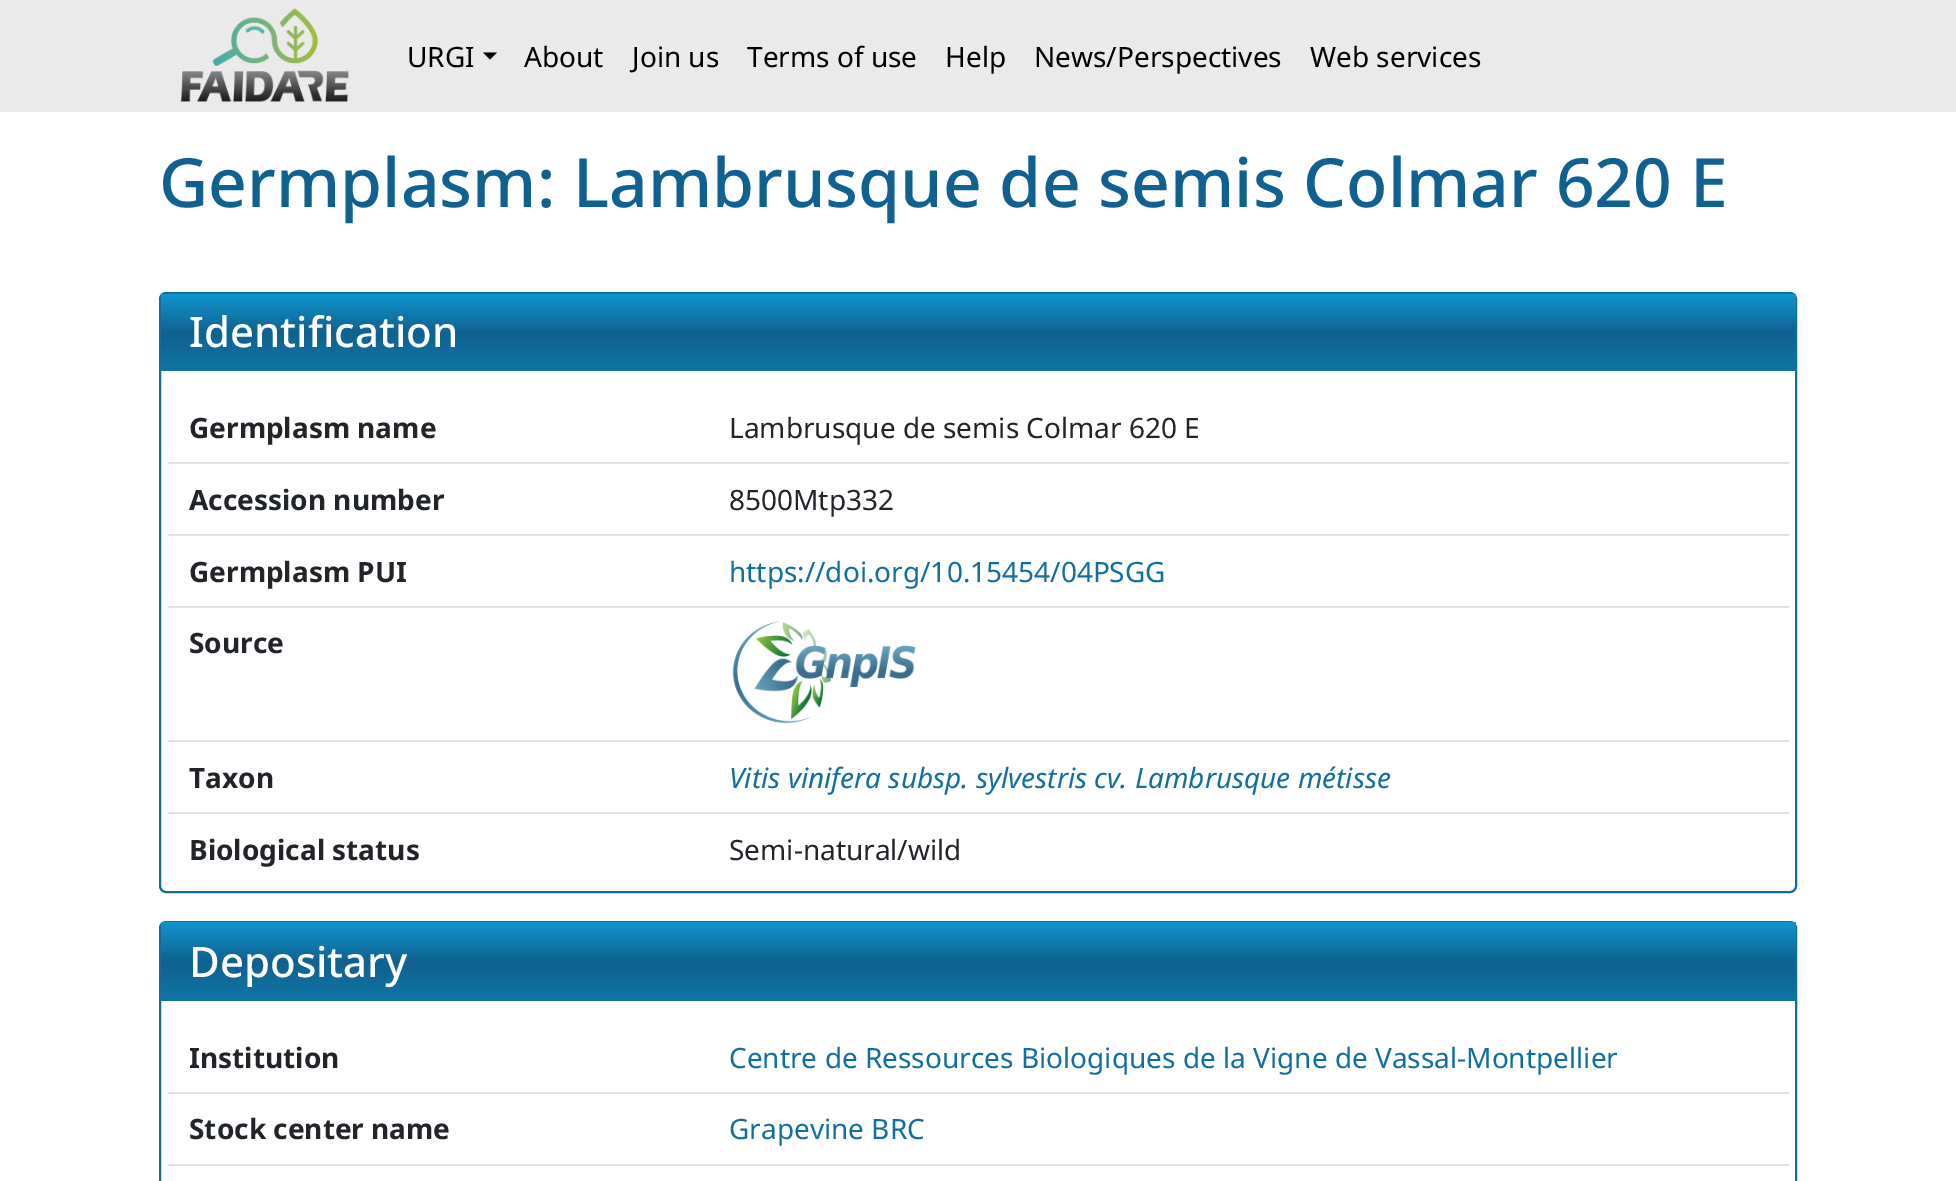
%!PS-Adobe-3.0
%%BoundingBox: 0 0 1956 1181
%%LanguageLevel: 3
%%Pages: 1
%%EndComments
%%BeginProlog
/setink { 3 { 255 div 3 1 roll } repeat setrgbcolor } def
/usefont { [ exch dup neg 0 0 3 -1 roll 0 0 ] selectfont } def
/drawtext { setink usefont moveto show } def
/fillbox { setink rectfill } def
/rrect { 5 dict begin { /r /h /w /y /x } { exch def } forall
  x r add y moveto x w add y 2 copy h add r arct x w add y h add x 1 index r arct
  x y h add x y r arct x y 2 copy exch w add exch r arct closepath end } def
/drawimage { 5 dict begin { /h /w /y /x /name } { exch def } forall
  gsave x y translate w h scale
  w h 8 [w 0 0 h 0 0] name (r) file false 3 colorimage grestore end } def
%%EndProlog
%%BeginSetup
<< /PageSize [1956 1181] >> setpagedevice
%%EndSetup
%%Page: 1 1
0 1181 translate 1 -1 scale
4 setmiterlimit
0 0 1956 1181 255 255 255 fillbox
0 0 1956 112 234 234 234 fillbox
(assets/img1.rgb) 180 8 169 94 drawimage
(URGI) 407 67 /NotoSans-Regular 28 0 0 0 drawtext
483 52.5 moveto 497 52.5 lineto 490 59.5 lineto closepath fill
(About) 524 67 /NotoSans-Regular 28 0 0 0 drawtext
(Join us) 632 67 /NotoSans-Regular 28 0 0 0 drawtext
(Terms of use) 747 67 /NotoSans-Regular 28 0 0 0 drawtext
(Help) 945 67 /NotoSans-Regular 28 0 0 0 drawtext
(News/Perspectives) 1034 67 /NotoSans-Regular 28 0 0 0 drawtext
(Web services) 1310 67 /NotoSans-Regular 28 0 0 0 drawtext
(Germplasm: Lambrusque de semis Colmar 620 E) 159 207 /NotoSans-Medium 67.85 15 97 145 drawtext
15 110 159 setink
2 setlinewidth
160 293 1636 599 6 rrect stroke
gsave 161 294 moveto 1796 294 lineto 1796 371 lineto 161 371 lineto closepath clip newpath
<< /ShadingType 2 /ColorSpace /DeviceRGB /Coords [978 294 978 371] /Extend [true true] /Function << /FunctionType 3 /Domain [0 1] /Functions [<< /FunctionType 2 /Domain [0 1] /C0 [0.059 0.588 0.804] /C1 [0.059 0.38 0.569] /N 1 >> << /FunctionType 2 /Domain [0 1] /C0 [0.059 0.38 0.569] /C1 [0.059 0.463 0.647] /N 1 >>] /Bounds [0.5] /Encode [0 1 0 1] >> >> shfill grestore
(Identification) 189 347 /NotoSans-Medium 42 255 255 255 drawtext
(Germplasm name) 189 438 /NotoSans-Bold 28 33 37 41 drawtext
(Lambrusque de semis Colmar 620 E) 729 438 /NotoSans-Regular 28 33 37 41 drawtext
168 462 1621 2 222 226 230 fillbox
(Accession number) 189 510 /NotoSans-Bold 28 33 37 41 drawtext
(8500Mtp332) 729 510 /NotoSans-Regular 28 33 37 41 drawtext
168 534 1621 2 222 226 230 fillbox
(Germplasm PUI) 189 582 /NotoSans-Bold 28 33 37 41 drawtext
(https://doi.org/10.15454/04PSGG) 729 582 /NotoSans-Regular 28 15 111 161 drawtext
168 606 1621 2 222 226 230 fillbox
(Source) 189 653 /NotoSans-Bold 28 33 37 41 drawtext
(assets/img2.rgb) 732 621 184 103 drawimage
168 740 1621 2 222 226 230 fillbox
(Taxon) 189 788 /NotoSans-Bold 28 33 37 41 drawtext
(Vitis vinifera subsp. sylvestris cv. Lambrusque métisse) 729 788 /NotoSans-Italic 28 15 111 161 drawtext
168 812 1621 2 222 226 230 fillbox
(Biological status) 189 860 /NotoSans-Bold 28 33 37 41 drawtext
(Semi-natural/wild) 729 860 /NotoSans-Regular 28 33 37 41 drawtext
15 110 159 setink
160 922 1636 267 6 rrect stroke
gsave 161 922 moveto 1796 922 lineto 1796 1001 lineto 161 1001 lineto closepath clip newpath
<< /ShadingType 2 /ColorSpace /DeviceRGB /Coords [978 922 978 1001] /Extend [true true] /Function << /FunctionType 3 /Domain [0 1] /Functions [<< /FunctionType 2 /Domain [0 1] /C0 [0.059 0.588 0.804] /C1 [0.059 0.38 0.569] /N 1 >> << /FunctionType 2 /Domain [0 1] /C0 [0.059 0.38 0.569] /C1 [0.059 0.463 0.647] /N 1 >>] /Bounds [0.5] /Encode [0 1 0 1] >> >> shfill grestore
(Depositary) 189 977 /NotoSans-Medium 42 255 255 255 drawtext
(Institution) 189 1068 /NotoSans-Bold 28 33 37 41 drawtext
(Centre de Ressources Biologiques de la Vigne de Vassal-Montpellier) 729 1068 /NotoSans-Regular 28 15 111 161 drawtext
168 1092 1621 2 222 226 230 fillbox
(Stock center name) 189 1139 /NotoSans-Bold 28 33 37 41 drawtext
(Grapevine BRC) 729 1139 /NotoSans-Regular 28 15 111 161 drawtext
168 1164 1621 2 222 226 230 fillbox
showpage
%%EOF
